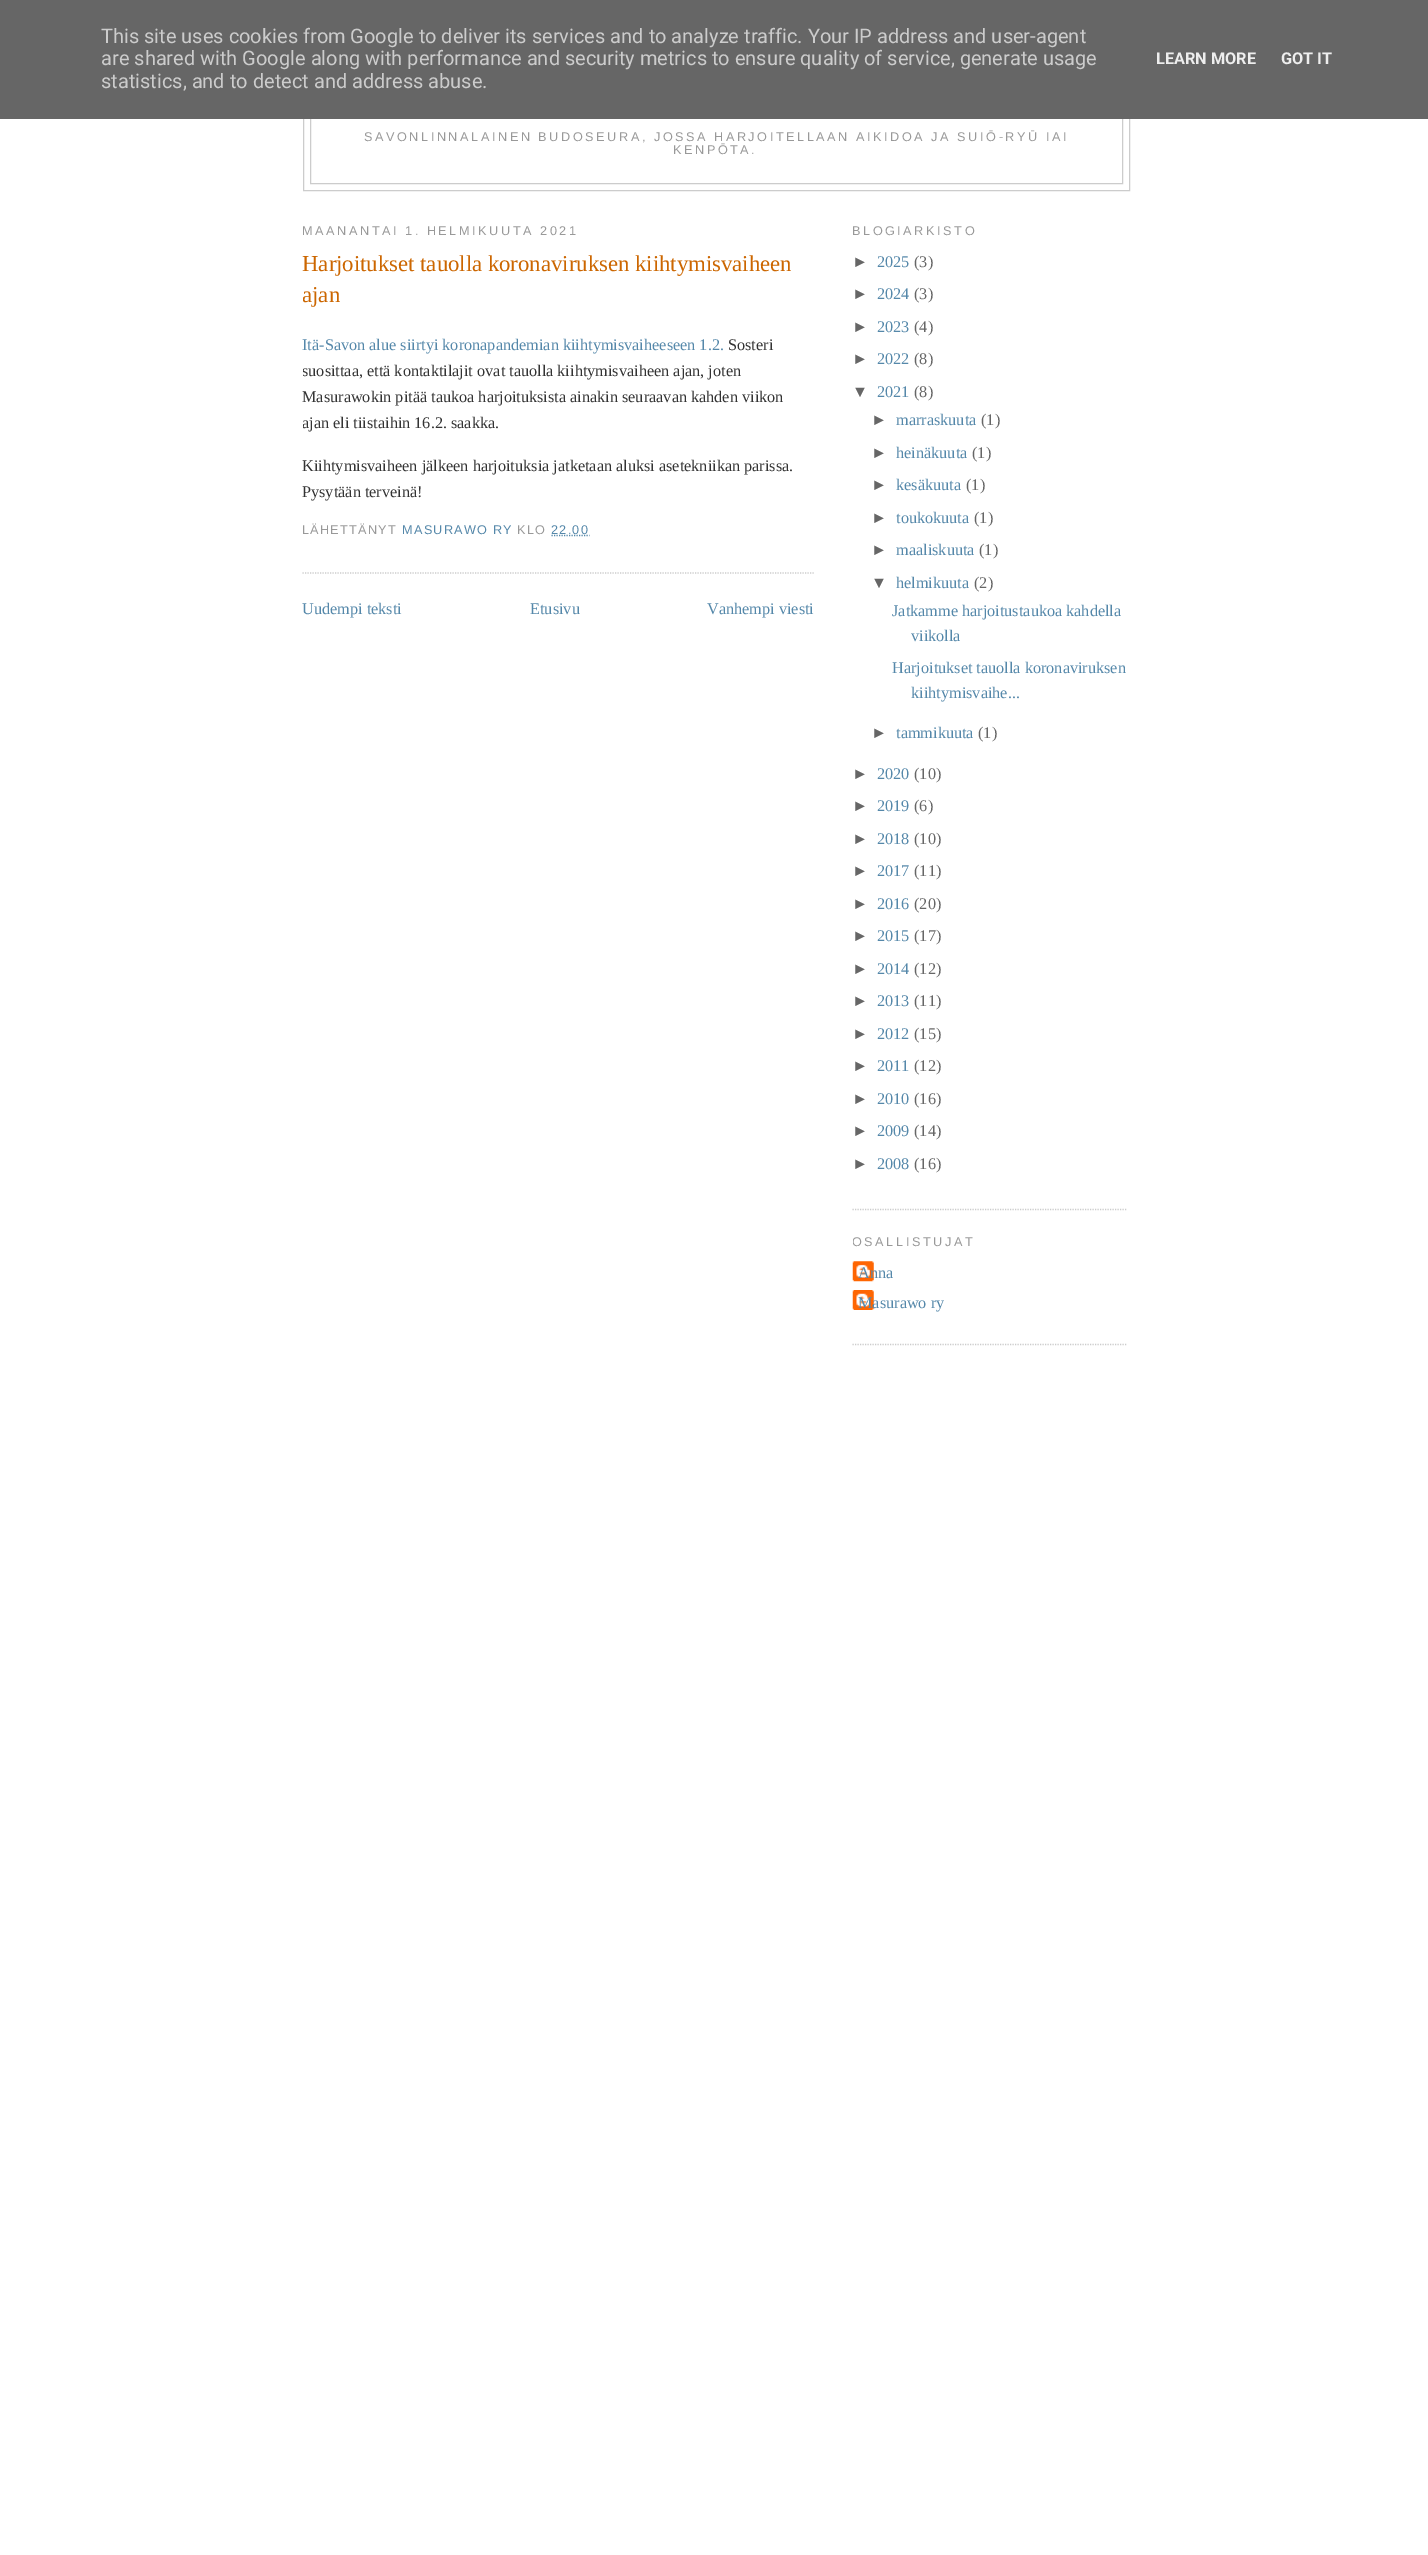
%!PS-Adobe-3.0
%%BoundingBox: 0 0 1428 2555
%%LanguageLevel: 3
%%Pages: 1
%%EndComments
%%BeginProlog
/setink { 3 { 255 div 3 1 roll } repeat setrgbcolor } def
/usefont { [ exch dup neg 0 0 3 -1 roll 0 0 ] selectfont } def
/drawtext { setink usefont moveto show } def
/fillbox { setink rectfill } def
/drawimage { 5 dict begin { /h /w /y /x /name } { exch def } forall
  gsave x y translate w h scale
  w h 8 [w 0 0 h 0 0] name (r) file false 3 colorimage grestore end } def
%%EndProlog
%%BeginSetup
<< /PageSize [1428 2555] >> setpagedevice
%%EndSetup
%%Page: 1 1
0 2555 translate 1 -1 scale
4 setmiterlimit
0 0 1428 2555 255 255 255 fillbox
204 204 204 setink
303.5 50.5 826 140 rectstroke
310.5 58.5 812 125 rectstroke
0 0 1428 119 102 102 102 fillbox
(This site uses cookies from Google to deliver its services and to analyze traffic. Your IP address and user-agent) 101 43 /Roboto-Regular 20 204 204 204 drawtext
(are shared with Google along with performance and security metrics to ensure quality of service, generate usage) 101 65 /Roboto-Regular 20 204 204 204 drawtext
(statistics, and to detect and address abuse.) 101 88 /Roboto-Regular 20 204 204 204 drawtext
(LEARN MORE) 1156 64 /Roboto-Bold 16.25 238 238 238 drawtext
(GOT IT) 1281 64 /Roboto-Bold 16.25 238 238 238 drawtext
/LiberationSans-Regular 12.68 usefont
153 153 153 setink
364 141 moveto 2.55 0 (SAVONLINNALAINEN BUDOSEURA, JOSSA HARJOITELLAAN AIKIDOA JA SUIŌ-RYŪ IAI) ashow
673 154 moveto 2.55 0 (KENPŌTA.) ashow
gsave
303 204 512 480 rectclip
302 235 moveto 2.55 0 (MAANANTAI 1. HELMIKUUTA 2021) ashow
grestore
204 204 204 setink
1.2 setlinewidth
[1.25 1.25] 0 setdash
302.5 573 moveto 815 573 lineto stroke
(Harjoitukset tauolla koronaviruksen kiihtymisvaiheen) 302 271 /LiberationSerif-Regular 22.75 204 102 0 drawtext
gsave
303 204 512 480 rectclip
(ajan) 302 302 /LiberationSerif-Regular 22.75 204 102 0 drawtext
grestore
(Itä-Savon alue siirtyi koronapandemian kiihtymisvaiheeseen 1.2.) 302 350 /LiberationSerif-Regular 16.25 85 136 170 drawtext
(Sosteri) 728 350 /LiberationSerif-Regular 16.25 51 51 51 drawtext
gsave
303 204 512 480 rectclip
(suosittaa, että kontaktilajit ovat tauolla kiihtymisvaiheen ajan, joten) 302 376 /LiberationSerif-Regular 16.25 51 51 51 drawtext
grestore
(Masurawokin pitää taukoa harjoituksista ainakin seuraavan kahden viikon) 302 402 /LiberationSerif-Regular 16.25 51 51 51 drawtext
gsave
303 204 512 480 rectclip
(ajan eli tiistaihin 16.2. saakka.) 302 428 /LiberationSerif-Regular 16.25 51 51 51 drawtext
grestore
(Kiihtymisvaiheen jälkeen harjoituksia jatketaan aluksi asetekniikan parissa.) 302 471 /LiberationSerif-Regular 16.25 51 51 51 drawtext
(Pysytään terveinä!) 302 497 /LiberationSerif-Regular 16.25 51 51 51 drawtext
gsave
303 204 512 480 rectclip
/LiberationSans-Regular 12.68 usefont
153 153 153 setink
302 534 moveto 1.25 0 (LÄHETTÄNYT) ashow
grestore
/LiberationSans-Regular 12.68 usefont
85 136 170 setink
402 534 moveto 1.25 0 (MASURAWO RY) ashow
153 153 153 setink
517 534 moveto 1.25 0 (KLO) ashow
85 136 170 setink
551.5 535.5 moveto 589.5 535.5 lineto stroke
551 534 moveto 1.25 0 (22.00) ashow
(Uudempi teksti) 302 614 /LiberationSerif-Regular 16.25 85 136 170 drawtext
(Etusivu) 530 614 /LiberationSerif-Regular 16.25 85 136 170 drawtext
(Vanhempi viesti) 707 614 /LiberationSerif-Regular 16.25 85 136 170 drawtext
204 204 204 setink
852.5 1209.5 moveto 1127.5 1209.5 lineto stroke
gsave
853 204 275 1165 rectclip
/LiberationSans-Regular 12.68 usefont
153 153 153 setink
852 235 moveto 2.55 0 (BLOGIARKISTO) ashow
grestore
(►) 852 267 /LiberationSans-Regular 16.25 102 102 102 drawtext
(2025) 877 267 /LiberationSerif-Regular 16.25 85 136 170 drawtext
(\(3\)) 914 267 /LiberationSerif-Regular 16.25 102 102 102 drawtext
(►) 852 299 /LiberationSans-Regular 16.25 102 102 102 drawtext
(2024) 877 299 /LiberationSerif-Regular 16.25 85 136 170 drawtext
(\(3\)) 914 299 /LiberationSerif-Regular 16.25 102 102 102 drawtext
(►) 852 332 /LiberationSans-Regular 16.25 102 102 102 drawtext
(2023) 877 332 /LiberationSerif-Regular 16.25 85 136 170 drawtext
(\(4\)) 914 332 /LiberationSerif-Regular 16.25 102 102 102 drawtext
(►) 852 364 /LiberationSans-Regular 16.25 102 102 102 drawtext
(2022) 877 364 /LiberationSerif-Regular 16.25 85 136 170 drawtext
(\(8\)) 914 364 /LiberationSerif-Regular 16.25 102 102 102 drawtext
(▼) 852 397 /LiberationSans-Regular 16.25 102 102 102 drawtext
(2021) 877 397 /LiberationSerif-Regular 16.25 85 136 170 drawtext
(\(8\)) 914 397 /LiberationSerif-Regular 16.25 102 102 102 drawtext
(►) 871 425 /LiberationSans-Regular 16.25 102 102 102 drawtext
(marraskuuta) 896 425 /LiberationSerif-Regular 16.25 85 136 170 drawtext
(\(1\)) 981 425 /LiberationSerif-Regular 16.25 102 102 102 drawtext
(►) 871 458 /LiberationSans-Regular 16.25 102 102 102 drawtext
(heinäkuuta) 896 458 /LiberationSerif-Regular 16.25 85 136 170 drawtext
(\(1\)) 972 458 /LiberationSerif-Regular 16.25 102 102 102 drawtext
(►) 871 490 /LiberationSans-Regular 16.25 102 102 102 drawtext
(kesäkuuta) 896 490 /LiberationSerif-Regular 16.25 85 136 170 drawtext
(\(1\)) 966 490 /LiberationSerif-Regular 16.25 102 102 102 drawtext
(►) 871 523 /LiberationSans-Regular 16.25 102 102 102 drawtext
(toukokuuta) 896 523 /LiberationSerif-Regular 16.25 85 136 170 drawtext
(\(1\)) 974 523 /LiberationSerif-Regular 16.25 102 102 102 drawtext
(►) 871 555 /LiberationSans-Regular 16.25 102 102 102 drawtext
(maaliskuuta) 896 555 /LiberationSerif-Regular 16.25 85 136 170 drawtext
(\(1\)) 979 555 /LiberationSerif-Regular 16.25 102 102 102 drawtext
(▼) 871 588 /LiberationSans-Regular 16.25 102 102 102 drawtext
(helmikuuta) 896 588 /LiberationSerif-Regular 16.25 85 136 170 drawtext
(\(2\)) 974 588 /LiberationSerif-Regular 16.25 102 102 102 drawtext
(Jatkamme harjoitustaukoa kahdella) 892 616 /LiberationSerif-Regular 16.25 85 136 170 drawtext
(viikolla) 911 641 /LiberationSerif-Regular 16.25 85 136 170 drawtext
(Harjoitukset tauolla koronaviruksen) 892 673 /LiberationSerif-Regular 16.25 85 136 170 drawtext
(kiihtymisvaihe...) 911 698 /LiberationSerif-Regular 16.25 85 136 170 drawtext
(►) 871 738 /LiberationSans-Regular 16.25 102 102 102 drawtext
(tammikuuta) 896 738 /LiberationSerif-Regular 16.25 85 136 170 drawtext
(\(1\)) 978 738 /LiberationSerif-Regular 16.25 102 102 102 drawtext
(►) 852 779 /LiberationSans-Regular 16.25 102 102 102 drawtext
(2020) 877 779 /LiberationSerif-Regular 16.25 85 136 170 drawtext
(\(10\)) 914 779 /LiberationSerif-Regular 16.25 102 102 102 drawtext
(►) 852 811 /LiberationSans-Regular 16.25 102 102 102 drawtext
(2019) 877 811 /LiberationSerif-Regular 16.25 85 136 170 drawtext
(\(6\)) 914 811 /LiberationSerif-Regular 16.25 102 102 102 drawtext
(►) 852 844 /LiberationSans-Regular 16.25 102 102 102 drawtext
(2018) 877 844 /LiberationSerif-Regular 16.25 85 136 170 drawtext
(\(10\)) 914 844 /LiberationSerif-Regular 16.25 102 102 102 drawtext
(►) 852 876 /LiberationSans-Regular 16.25 102 102 102 drawtext
(2017) 877 876 /LiberationSerif-Regular 16.25 85 136 170 drawtext
(\(11\)) 914 876 /LiberationSerif-Regular 16.25 102 102 102 drawtext
(►) 852 909 /LiberationSans-Regular 16.25 102 102 102 drawtext
(2016) 877 909 /LiberationSerif-Regular 16.25 85 136 170 drawtext
(\(20\)) 914 909 /LiberationSerif-Regular 16.25 102 102 102 drawtext
(►) 852 941 /LiberationSans-Regular 16.25 102 102 102 drawtext
(2015) 877 941 /LiberationSerif-Regular 16.25 85 136 170 drawtext
(\(17\)) 914 941 /LiberationSerif-Regular 16.25 102 102 102 drawtext
(►) 852 974 /LiberationSans-Regular 16.25 102 102 102 drawtext
(2014) 877 974 /LiberationSerif-Regular 16.25 85 136 170 drawtext
(\(12\)) 914 974 /LiberationSerif-Regular 16.25 102 102 102 drawtext
(►) 852 1006 /LiberationSans-Regular 16.25 102 102 102 drawtext
(2013) 877 1006 /LiberationSerif-Regular 16.25 85 136 170 drawtext
(\(11\)) 914 1006 /LiberationSerif-Regular 16.25 102 102 102 drawtext
(►) 852 1039 /LiberationSans-Regular 16.25 102 102 102 drawtext
(2012) 877 1039 /LiberationSerif-Regular 16.25 85 136 170 drawtext
(\(15\)) 914 1039 /LiberationSerif-Regular 16.25 102 102 102 drawtext
(►) 852 1071 /LiberationSans-Regular 16.25 102 102 102 drawtext
(2011) 877 1071 /LiberationSerif-Regular 16.25 85 136 170 drawtext
(\(12\)) 914 1071 /LiberationSerif-Regular 16.25 102 102 102 drawtext
(►) 852 1104 /LiberationSans-Regular 16.25 102 102 102 drawtext
(2010) 877 1104 /LiberationSerif-Regular 16.25 85 136 170 drawtext
(\(16\)) 914 1104 /LiberationSerif-Regular 16.25 102 102 102 drawtext
(►) 852 1136 /LiberationSans-Regular 16.25 102 102 102 drawtext
(2009) 877 1136 /LiberationSerif-Regular 16.25 85 136 170 drawtext
(\(14\)) 914 1136 /LiberationSerif-Regular 16.25 102 102 102 drawtext
(►) 852 1169 /LiberationSans-Regular 16.25 102 102 102 drawtext
(2008) 877 1169 /LiberationSerif-Regular 16.25 85 136 170 drawtext
(\(16\)) 914 1169 /LiberationSerif-Regular 16.25 102 102 102 drawtext
204 204 204 setink
852.5 1344.5 moveto 1127.5 1344.5 lineto stroke
gsave
853 204 275 1165 rectclip
/LiberationSans-Regular 12.68 usefont
153 153 153 setink
852 1246 moveto 2.55 0 (OSALLISTUJAT) ashow
grestore
(assets/img1.rgb) 852 1261 22 21 drawimage
(Anna) 858 1278 /LiberationSerif-Regular 16.25 85 136 170 drawtext
(assets/img2.rgb) 852 1290 22 20 drawimage
(Masurawo ry) 858 1308 /LiberationSerif-Regular 16.25 85 136 170 drawtext
showpage
%%EOF
